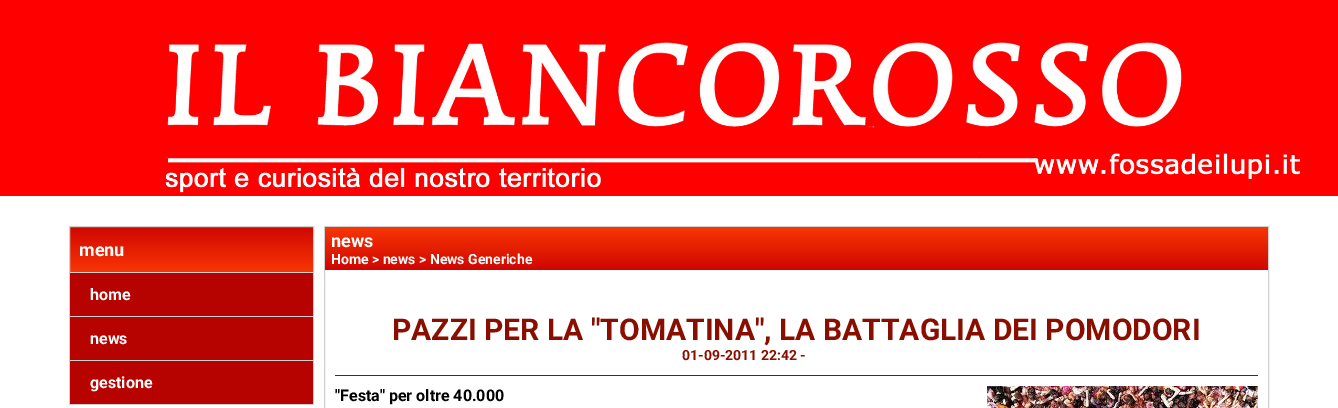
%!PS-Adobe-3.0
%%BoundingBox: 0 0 1338 408
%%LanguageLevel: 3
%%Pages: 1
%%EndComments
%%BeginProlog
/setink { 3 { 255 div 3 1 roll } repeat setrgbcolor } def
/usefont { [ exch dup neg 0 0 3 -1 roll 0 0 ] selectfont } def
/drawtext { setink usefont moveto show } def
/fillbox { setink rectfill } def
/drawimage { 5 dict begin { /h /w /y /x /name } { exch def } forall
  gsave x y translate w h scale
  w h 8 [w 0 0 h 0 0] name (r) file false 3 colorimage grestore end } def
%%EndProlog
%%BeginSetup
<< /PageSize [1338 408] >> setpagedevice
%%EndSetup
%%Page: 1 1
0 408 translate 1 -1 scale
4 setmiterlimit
0 0 1338 408 255 255 255 fillbox
(assets/img1.rgb) 0 0 1338 196 drawimage
gsave 70 227 moveto 313 227 lineto 313 272 lineto 70 272 lineto closepath clip newpath
<< /ShadingType 2 /ColorSpace /DeviceRGB /Coords [192 272 192 227] /Extend [true true] /Function << /FunctionType 2 /Domain [0 1] /C0 [0.976 0.212 0.02] /C1 [0.812 0.024 0] /N 1 >> >> shfill grestore
206 207 207 setink
69.5 226.5 244 46 rectstroke
(menu) 79 256 /Roboto-Bold 18 255 255 255 drawtext
313 273 1 132 206 207 207 fillbox
69 273 1 132 206 207 207 fillbox
70 273 243 43 183 3 0 fillbox
70 316 243 1 206 207 207 fillbox
(home) 90 300 /Roboto-Bold 16 255 255 255 drawtext
70 317 243 43 183 3 0 fillbox
70 360 243 1 206 207 207 fillbox
(news) 90 344 /Roboto-Bold 16 255 255 255 drawtext
70 361 243 43 183 3 0 fillbox
70 404 243 1 206 207 207 fillbox
(gestione) 90 388 /Roboto-Bold 16 255 255 255 drawtext
206 207 207 setink
324.5 226.5 944 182 rectstroke
gsave 325 227 moveto 1268 227 lineto 1268 270 lineto 325 270 lineto closepath clip newpath
<< /ShadingType 2 /ColorSpace /DeviceRGB /Coords [797 270 797 227] /Extend [true true] /Function << /FunctionType 2 /Domain [0 1] /C0 [0.812 0.024 0] /C1 [0.976 0.212 0.02] /N 1 >> >> shfill grestore
(news) 331 247 /Roboto-Bold 18 255 255 255 drawtext
(Home > news > News Generiche) 331 264 /Roboto-Bold 14 255 255 255 drawtext
335 375 923 1 138 14 0 fillbox
(PAZZI PER LA "TOMATINA", LA BATTAGLIA DEI POMODORI) 392 340 /Roboto-Bold 30 138 14 0 drawtext
(01-09-2011 22:42 -) 682 360 /Roboto-Bold 14 138 14 0 drawtext
("Festa" per oltre 40.000) 335 401 /Roboto-Bold 16 0 0 0 drawtext
(assets/img2.rgb) 987 386 271 22 drawimage
showpage
%%EOF
